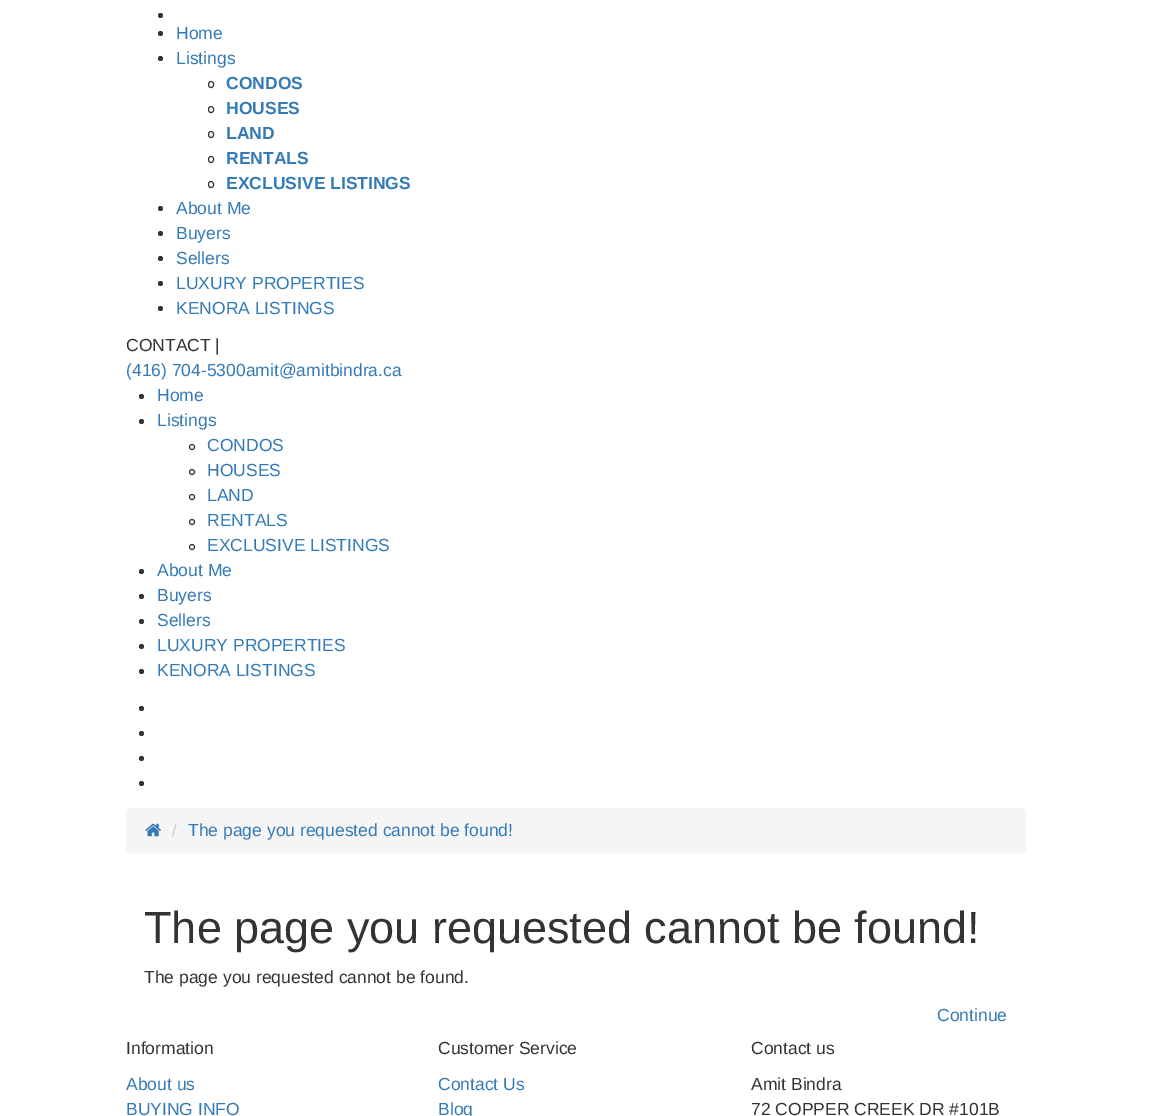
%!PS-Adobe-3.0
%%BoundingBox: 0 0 1151 1116
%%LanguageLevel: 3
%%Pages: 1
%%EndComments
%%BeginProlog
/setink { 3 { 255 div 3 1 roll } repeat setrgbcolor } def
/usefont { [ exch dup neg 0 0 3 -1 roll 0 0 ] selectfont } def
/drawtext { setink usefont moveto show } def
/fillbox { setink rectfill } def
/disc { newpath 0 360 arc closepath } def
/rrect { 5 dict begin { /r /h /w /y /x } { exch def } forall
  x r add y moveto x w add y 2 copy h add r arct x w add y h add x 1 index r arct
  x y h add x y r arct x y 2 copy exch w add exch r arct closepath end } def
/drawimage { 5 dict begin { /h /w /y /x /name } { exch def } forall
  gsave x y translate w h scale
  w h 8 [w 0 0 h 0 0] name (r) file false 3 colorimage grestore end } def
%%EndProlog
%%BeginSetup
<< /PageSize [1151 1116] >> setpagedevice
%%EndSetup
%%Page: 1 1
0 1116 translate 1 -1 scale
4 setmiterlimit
0 0 1151 1116 255 255 255 fillbox
51 51 51 setink
160.5 15.5 2.5 disc fill
160.5 33.5 2.5 disc fill
(Home) 176 39 /LiberationSans-Regular 17.5 51 122 183 drawtext
51 51 51 setink
160.5 58.5 2.5 disc fill
(Listings) 176 64 /LiberationSans-Regular 17.5 51 122 183 drawtext
51 51 51 setink
208.5 81.5 5 6 2.5 rrect stroke
(CONDOS) 226 89 /LiberationSans-Bold 17.5 51 122 183 drawtext
51 51 51 setink
208.5 106.5 5 6 2.5 rrect stroke
(HOUSES) 226 114 /LiberationSans-Bold 17.5 51 122 183 drawtext
51 51 51 setink
208.5 131.5 5 6 2.5 rrect stroke
(LAND) 226 139 /LiberationSans-Bold 17.5 51 122 183 drawtext
51 51 51 setink
208.5 156.5 5 6 2.5 rrect stroke
(RENTALS) 226 164 /LiberationSans-Bold 17.5 51 122 183 drawtext
51 51 51 setink
208.5 181.5 5 6 2.5 rrect stroke
(EXCLUSIVE LISTINGS) 226 189 /LiberationSans-Bold 17.5 51 122 183 drawtext
51 51 51 setink
160.5 208.5 2.5 disc fill
(About Me) 176 214 /LiberationSans-Regular 17.5 51 122 183 drawtext
51 51 51 setink
160.5 233.5 2.5 disc fill
(Buyers) 176 239 /LiberationSans-Regular 17.5 51 122 183 drawtext
51 51 51 setink
160.5 258.5 2.5 disc fill
(Sellers) 176 264 /LiberationSans-Regular 17.5 51 122 183 drawtext
51 51 51 setink
160.5 283.5 2.5 disc fill
(LUXURY PROPERTIES) 176 289 /LiberationSans-Regular 17.5 51 122 183 drawtext
51 51 51 setink
160.5 308.5 2.5 disc fill
(KENORA LISTINGS) 176 314 /LiberationSans-Regular 17.5 51 122 183 drawtext
(CONTACT |) 126 351 /LiberationSans-Regular 17.5 51 51 51 drawtext
(\(416\) 704-5300amit@amitbindra.ca) 126 376 /LiberationSans-Regular 17.5 51 122 183 drawtext
51 51 51 setink
141.5 396.5 2.5 disc fill
(Home) 157 401 /LiberationSans-Regular 17.5 51 122 183 drawtext
51 51 51 setink
141.5 421.5 2.5 disc fill
(Listings) 157 426 /LiberationSans-Regular 17.5 51 122 183 drawtext
51 51 51 setink
192 447 2.5 disc stroke
(CONDOS) 207 451 /LiberationSans-Regular 17.5 51 122 183 drawtext
51 51 51 setink
192 472 2.5 disc stroke
(HOUSES) 207 476 /LiberationSans-Regular 17.5 51 122 183 drawtext
51 51 51 setink
192 497 2.5 disc stroke
(LAND) 207 501 /LiberationSans-Regular 17.5 51 122 183 drawtext
51 51 51 setink
192 522 2.5 disc stroke
(RENTALS) 207 526 /LiberationSans-Regular 17.5 51 122 183 drawtext
51 51 51 setink
192 547 2.5 disc stroke
(EXCLUSIVE LISTINGS) 207 551 /LiberationSans-Regular 17.5 51 122 183 drawtext
51 51 51 setink
141.5 571.5 2.5 disc fill
(About Me) 157 576 /LiberationSans-Regular 17.5 51 122 183 drawtext
51 51 51 setink
141.5 596.5 2.5 disc fill
(Buyers) 157 601 /LiberationSans-Regular 17.5 51 122 183 drawtext
51 51 51 setink
141.5 621.5 2.5 disc fill
(Sellers) 157 626 /LiberationSans-Regular 17.5 51 122 183 drawtext
51 51 51 setink
141.5 646.5 2.5 disc fill
(LUXURY PROPERTIES) 157 651 /LiberationSans-Regular 17.5 51 122 183 drawtext
51 51 51 setink
141.5 671.5 2.5 disc fill
(KENORA LISTINGS) 157 676 /LiberationSans-Regular 17.5 51 122 183 drawtext
51 51 51 setink
141.5 708.5 2.5 disc fill
141.5 733.5 2.5 disc fill
141.5 758.5 2.5 disc fill
141.5 783.5 2.5 disc fill
245 245 245 setink
126 808 900 45 5 rrect fill
(assets/img1.rgb) 145 823 16 14 drawimage
(/) 172 836 /LiberationSans-Regular 17.5 204 204 204 drawtext
(The page you requested cannot be found!) 188 836 /LiberationSans-Regular 17.5 51 122 183 drawtext
(The page you requested cannot be found!) 144 943 /LiberationSans-Regular 45 51 51 51 drawtext
(The page you requested cannot be found.) 144 983 /LiberationSans-Regular 17.5 51 51 51 drawtext
(Continue) 937 1021 /LiberationSans-Regular 17.5 51 122 183 drawtext
(Information) 126 1054 /LiberationSans-Regular 17.5 51 51 51 drawtext
(About us) 126 1090 /LiberationSans-Regular 17.5 51 122 183 drawtext
(BUYING INFO) 126 1115 /LiberationSans-Regular 17.5 51 122 183 drawtext
(Customer Service) 438 1054 /LiberationSans-Regular 17.5 51 51 51 drawtext
(Contact Us) 438 1090 /LiberationSans-Regular 17.5 51 122 183 drawtext
(Blog) 438 1115 /LiberationSans-Regular 17.5 51 122 183 drawtext
(Contact us) 751 1054 /LiberationSans-Regular 17.5 51 51 51 drawtext
(Amit Bindra) 751 1090 /LiberationSans-Regular 17.5 51 51 51 drawtext
(72 COPPER CREEK DR #101B) 751 1115 /LiberationSans-Regular 17.5 51 51 51 drawtext
showpage
%%EOF
